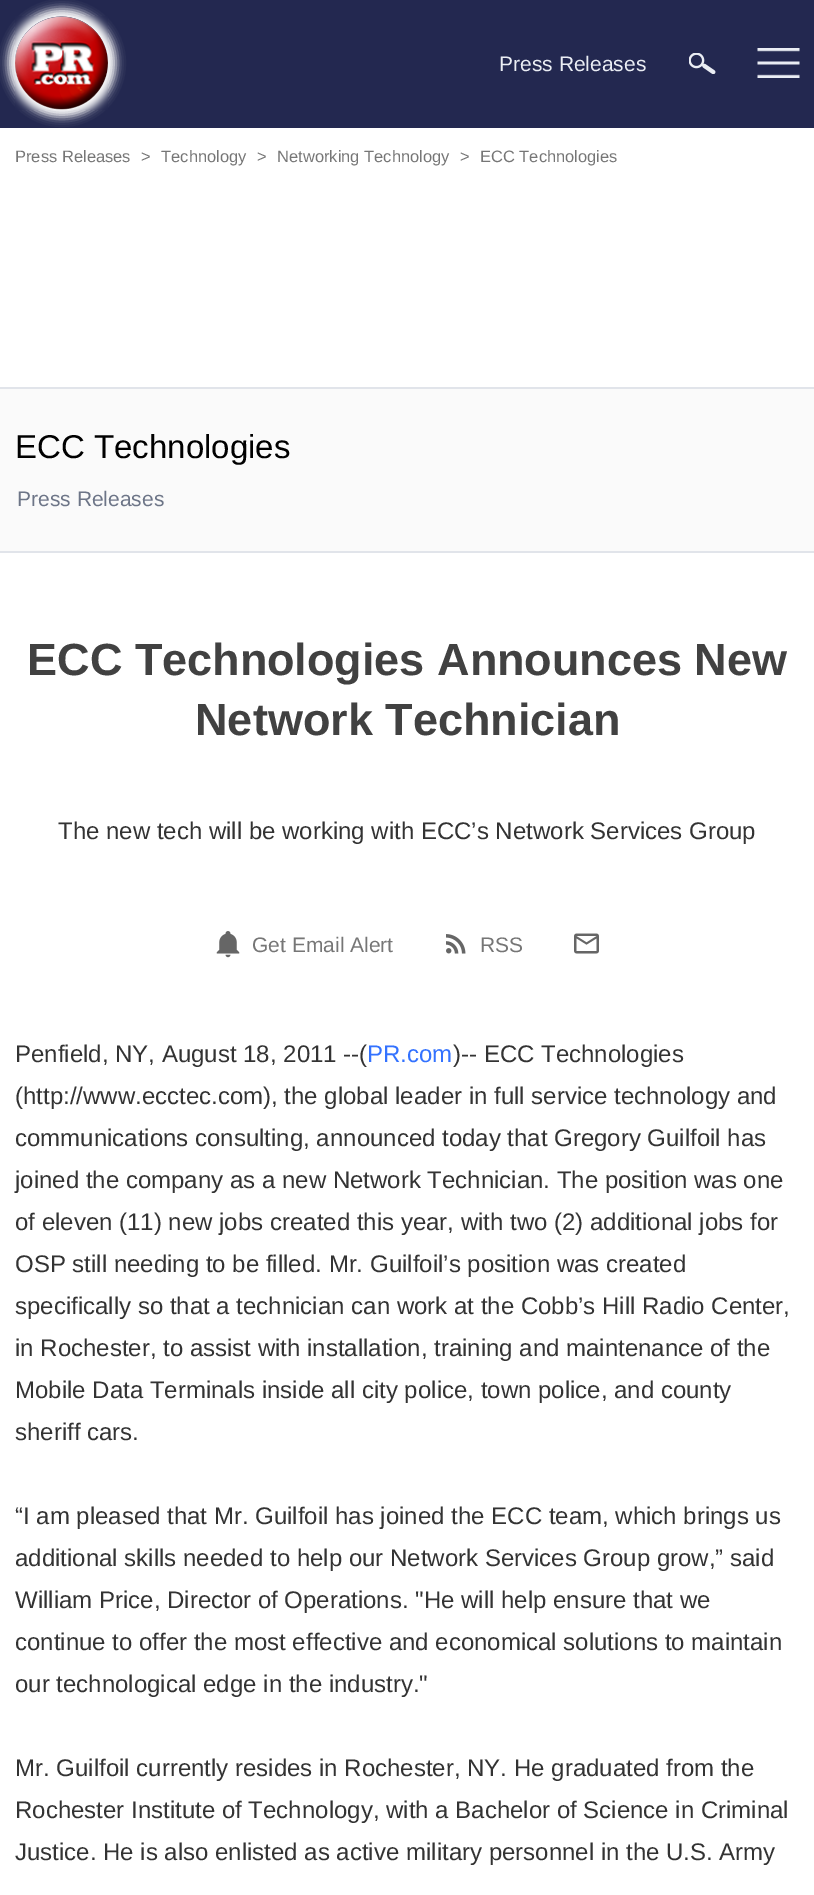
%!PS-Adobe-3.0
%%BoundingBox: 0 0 814 1895
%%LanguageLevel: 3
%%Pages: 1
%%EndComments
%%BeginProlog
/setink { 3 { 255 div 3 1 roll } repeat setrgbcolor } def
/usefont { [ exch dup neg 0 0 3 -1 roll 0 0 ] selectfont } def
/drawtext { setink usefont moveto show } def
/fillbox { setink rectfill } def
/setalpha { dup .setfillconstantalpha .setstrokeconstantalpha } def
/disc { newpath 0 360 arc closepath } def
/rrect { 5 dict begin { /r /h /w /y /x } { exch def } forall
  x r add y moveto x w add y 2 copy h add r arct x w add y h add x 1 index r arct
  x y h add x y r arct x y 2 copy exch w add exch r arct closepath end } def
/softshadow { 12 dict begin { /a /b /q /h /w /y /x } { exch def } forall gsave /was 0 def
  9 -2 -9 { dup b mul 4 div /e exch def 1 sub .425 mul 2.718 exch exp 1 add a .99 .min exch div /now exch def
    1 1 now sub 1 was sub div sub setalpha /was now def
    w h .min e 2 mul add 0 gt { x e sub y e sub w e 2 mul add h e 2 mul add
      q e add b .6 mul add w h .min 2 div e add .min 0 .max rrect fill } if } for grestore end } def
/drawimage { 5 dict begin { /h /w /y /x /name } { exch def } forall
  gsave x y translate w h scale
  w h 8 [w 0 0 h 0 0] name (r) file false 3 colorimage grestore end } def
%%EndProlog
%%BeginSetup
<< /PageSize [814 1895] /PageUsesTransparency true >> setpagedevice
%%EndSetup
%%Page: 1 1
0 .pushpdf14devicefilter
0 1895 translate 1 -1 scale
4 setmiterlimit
0 0 814 1895 255 255 255 fillbox
0 0 814 128 35 40 80 fillbox
255 255 255 setink
8 9 108 108 54 4.5 1 softshadow
61.5 63.5 46.5 disc fill
(assets/img1.rgb) 15 16 93 94 drawimage
(Press Releases) 499 71 /LiberationSans-Regular 21 234 237 244 drawtext
(assets/img2.rgb) 689 53 27 21 drawimage
(assets/img3.rgb) 757 48 43 30 drawimage
(Press Releases) 15 162 /LiberationSans-Regular 16.5 118 118 118 drawtext
(>) 141 162 /LiberationSans-Regular 16.5 118 118 118 drawtext
(Technology) 161 162 /LiberationSans-Regular 16.5 118 118 118 drawtext
(>) 257 162 /LiberationSans-Regular 16.5 118 118 118 drawtext
(Networking Technology) 277 162 /LiberationSans-Regular 16.5 118 118 118 drawtext
(>) 460 162 /LiberationSans-Regular 16.5 118 118 118 drawtext
(ECC Technologies) 480 162 /LiberationSans-Regular 16.5 118 118 118 drawtext
0 389 814 162 250 250 250 fillbox
0 387 814 2 225 228 234 fillbox
0 551 814 2 225 228 234 fillbox
(ECC Technologies) 15 458 /LiberationSans-Regular 33 0 0 0 drawtext
(Press Releases) 17 506 /LiberationSans-Regular 21 109 117 135 drawtext
(ECC Technologies Announces New) 27 675 /LiberationSans-Bold 45 65 65 65 drawtext
(Network Technician) 195 735 /LiberationSans-Bold 45 65 65 65 drawtext
(The new tech will be working with ECC’s Network Services Group) 58 839 /LiberationSans-Regular 24 51 51 51 drawtext
(assets/img4.rgb) 216 931 24 27 drawimage
(Get Email Alert) 252 952 /LiberationSans-Regular 21 118 118 118 drawtext
(assets/img5.rgb) 446 934 20 20 drawimage
(RSS) 480 952 /LiberationSans-Regular 21 118 118 118 drawtext
(assets/img6.rgb) 574 933 25 21 drawimage
(Penfield, NY, August 18, 2011 --\() 15 1062 /LiberationSans-Regular 24 51 51 51 drawtext
(PR.com) 367 1062 /LiberationSans-Regular 24 51 114 255 drawtext
(\)-- ECC Technologies) 453 1062 /LiberationSans-Regular 24 51 51 51 drawtext
(\(http://www.ecctec.com\), the global leader in full service technology and) 15 1104 /LiberationSans-Regular 24 51 51 51 drawtext
(communications consulting, announced today that Gregory Guilfoil has) 15 1146 /LiberationSans-Regular 24 51 51 51 drawtext
(joined the company as a new Network Technician. The position was one) 15 1188 /LiberationSans-Regular 24 51 51 51 drawtext
(of eleven \(11\) new jobs created this year, with two \(2\) additional jobs for) 15 1230 /LiberationSans-Regular 24 51 51 51 drawtext
(OSP still needing to be filled. Mr. Guilfoil’s position was created) 15 1272 /LiberationSans-Regular 24 51 51 51 drawtext
(specifically so that a technician can work at the Cobb’s Hill Radio Center,) 15 1314 /LiberationSans-Regular 24 51 51 51 drawtext
(in Rochester, to assist with installation, training and maintenance of the) 15 1356 /LiberationSans-Regular 24 51 51 51 drawtext
(Mobile Data Terminals inside all city police, town police, and county) 15 1398 /LiberationSans-Regular 24 51 51 51 drawtext
(sheriff cars.) 15 1440 /LiberationSans-Regular 24 51 51 51 drawtext
(“I am pleased that Mr. Guilfoil has joined the ECC team, which brings us) 15 1524 /LiberationSans-Regular 24 51 51 51 drawtext
(additional skills needed to help our Network Services Group grow,” said) 15 1566 /LiberationSans-Regular 24 51 51 51 drawtext
(William Price, Director of Operations. "He will help ensure that we) 15 1608 /LiberationSans-Regular 24 51 51 51 drawtext
(continue to offer the most effective and economical solutions to maintain) 15 1650 /LiberationSans-Regular 24 51 51 51 drawtext
(our technological edge in the industry.") 15 1692 /LiberationSans-Regular 24 51 51 51 drawtext
(Mr. Guilfoil currently resides in Rochester, NY. He graduated from the) 15 1776 /LiberationSans-Regular 24 51 51 51 drawtext
(Rochester Institute of Technology, with a Bachelor of Science in Criminal) 15 1818 /LiberationSans-Regular 24 51 51 51 drawtext
(Justice. He is also enlisted as active military personnel in the U.S. Army) 15 1860 /LiberationSans-Regular 24 51 51 51 drawtext
.poppdf14devicefilter showpage
%%EOF
